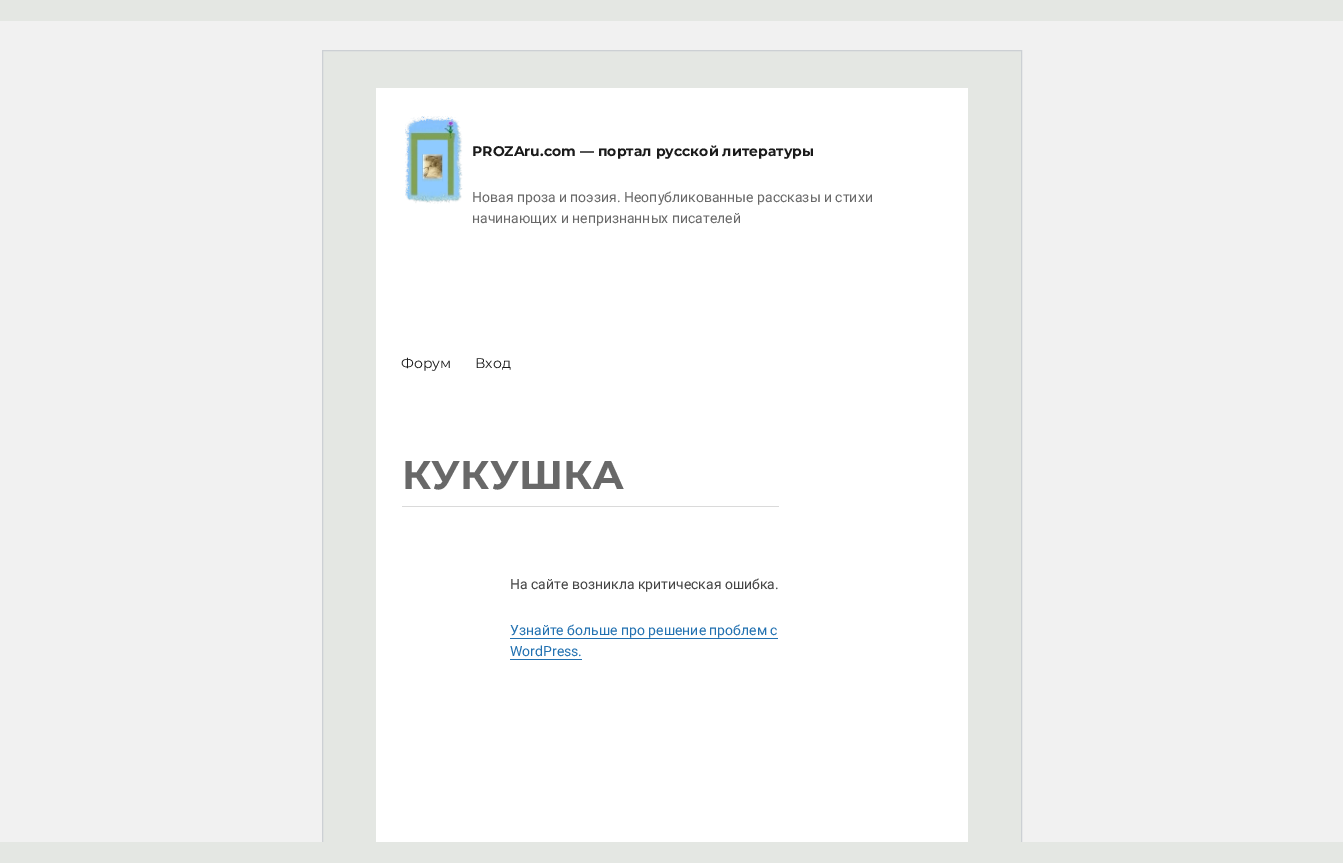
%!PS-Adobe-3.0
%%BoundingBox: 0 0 1343 863
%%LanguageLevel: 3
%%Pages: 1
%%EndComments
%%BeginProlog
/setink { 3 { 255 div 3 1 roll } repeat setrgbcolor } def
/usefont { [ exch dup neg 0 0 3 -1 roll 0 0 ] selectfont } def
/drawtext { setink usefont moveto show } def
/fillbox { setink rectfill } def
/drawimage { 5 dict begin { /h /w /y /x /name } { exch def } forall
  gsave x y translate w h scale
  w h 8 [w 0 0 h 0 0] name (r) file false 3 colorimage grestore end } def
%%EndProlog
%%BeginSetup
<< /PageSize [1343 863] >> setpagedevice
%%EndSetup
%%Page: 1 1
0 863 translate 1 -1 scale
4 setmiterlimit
0 0 1343 863 241 241 241 fillbox
323 51 698 791 228 231 227 fillbox
204 208 212 setink
322.5 50.5 699 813 rectstroke
0 0 1343 21 228 231 227 fillbox
376 88 592 754 255 255 255 fillbox
(assets/img1.rgb) 405 116 58 88 drawimage
(PROZAru.com — портал русской литературы) 472 156 /Montserrat-Bold 14 26 26 26 drawtext
(Новая проза и поэзия. Неопубликованные рассказы и стихи) 472 202 /Roboto-Regular 14 104 104 104 drawtext
(начинающих и непризнанных писателей) 472 223 /Roboto-Regular 14 104 104 104 drawtext
(Форум) 401 368 /Montserrat-Regular 14 26 26 26 drawtext
(Вход) 475 368 /Montserrat-Regular 14 26 26 26 drawtext
402 506 377 1 218 218 218 fillbox
(КУКУШКА) 402 489 /Montserrat-Bold 40 104 104 104 drawtext
(На сайте возникла критическая ошибка.) 510 589 /Roboto-Regular 14 68 68 68 drawtext
(Узнайте больше про решение проблем с) 510 635 /Roboto-Regular 14 34 113 177 drawtext
510 638 268 1 34 113 177 fillbox
(WordPress.) 510 656 /Roboto-Regular 14 34 113 177 drawtext
510 659 72 1 34 113 177 fillbox
0 842 1343 21 228 231 227 fillbox
showpage
%%EOF
